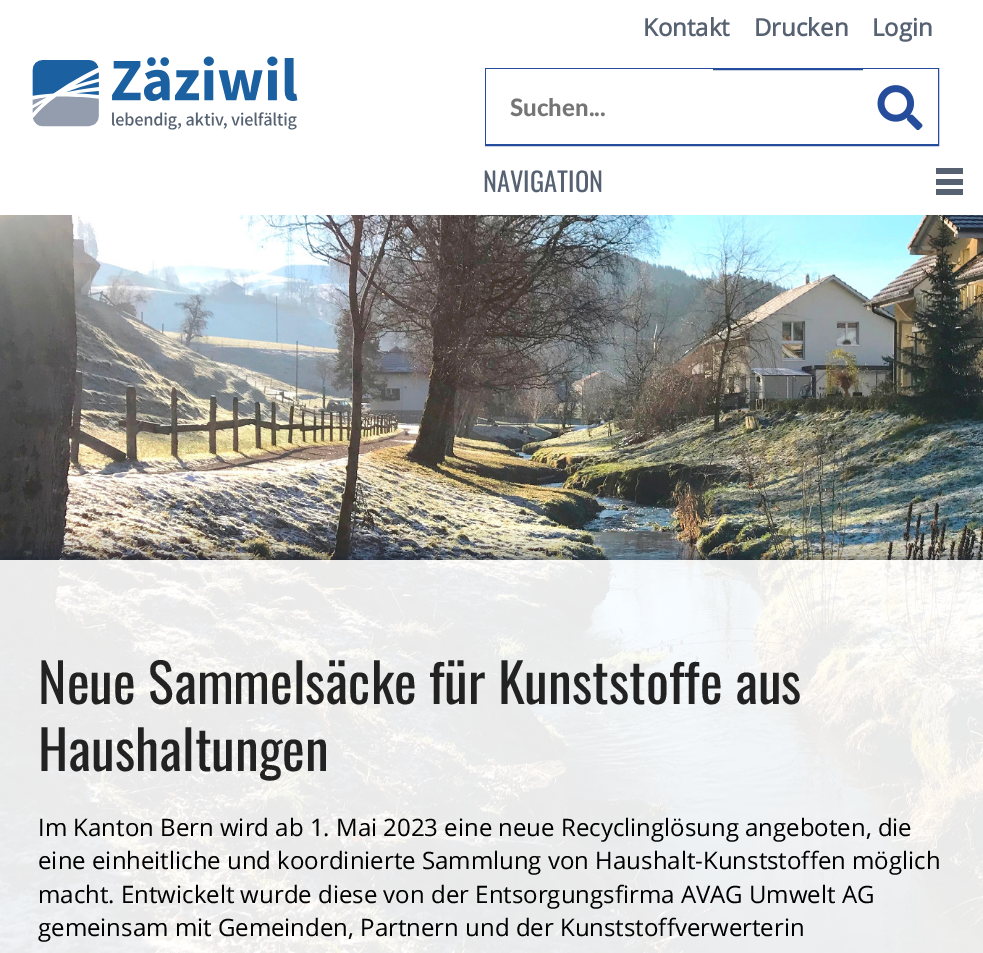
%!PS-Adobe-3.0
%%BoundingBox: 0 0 983 953
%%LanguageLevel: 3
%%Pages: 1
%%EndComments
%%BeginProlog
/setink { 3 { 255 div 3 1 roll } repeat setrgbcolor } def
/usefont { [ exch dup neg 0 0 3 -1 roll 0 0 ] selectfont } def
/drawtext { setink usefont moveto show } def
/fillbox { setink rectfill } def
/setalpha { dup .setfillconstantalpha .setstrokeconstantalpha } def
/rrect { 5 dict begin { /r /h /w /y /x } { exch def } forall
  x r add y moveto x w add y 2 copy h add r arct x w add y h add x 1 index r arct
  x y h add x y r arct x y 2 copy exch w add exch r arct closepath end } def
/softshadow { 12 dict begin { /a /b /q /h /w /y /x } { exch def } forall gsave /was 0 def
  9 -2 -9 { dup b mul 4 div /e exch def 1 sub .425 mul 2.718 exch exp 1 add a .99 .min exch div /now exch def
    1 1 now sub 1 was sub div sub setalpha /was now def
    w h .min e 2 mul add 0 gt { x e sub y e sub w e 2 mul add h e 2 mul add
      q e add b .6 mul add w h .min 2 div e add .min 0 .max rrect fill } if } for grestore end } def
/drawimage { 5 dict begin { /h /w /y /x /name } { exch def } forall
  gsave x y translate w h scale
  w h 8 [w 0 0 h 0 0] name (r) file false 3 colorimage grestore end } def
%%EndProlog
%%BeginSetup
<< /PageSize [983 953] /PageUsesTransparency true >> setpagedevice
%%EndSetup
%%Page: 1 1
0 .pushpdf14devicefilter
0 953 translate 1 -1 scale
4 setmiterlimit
0 0 983 953 255 255 255 fillbox
(assets/img1.rgb) 0 215 983 738 drawimage
(Kontakt) 643 36 /OpenSans-Bold 24 86 98 114 drawtext
(Drucken) 754 36 /OpenSans-Bold 24 86 98 114 drawtext
(Login) 872 36 /OpenSans-Bold 24 86 98 114 drawtext
(assets/img2.rgb) 32 56 266 74 drawimage
37 77 156 setink
2 setlinewidth
486 69 452 76 rectstroke
863 69 75 75 255 255 255 fillbox
486 69 227 75 255 255 255 fillbox
(Suchen...) 510 116 /Lato-Black 24 117 117 117 drawtext
(assets/img3.rgb) 877 85 46 46 drawimage
(NAVIGATION) 483 192 /Oswald-Regular 26.5 86 98 114 drawtext
936 168 27 6 86 98 114 fillbox
936 179 27 6 86 98 114 fillbox
936 189 27 6 86 98 114 fillbox
gsave
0 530 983 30 rectclip
22 33 54 setink
0 560 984 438 0 15 0.84 softshadow
grestore
0.9 setalpha
0 560 983 393 255 255 255 fillbox
1 setalpha
(Neue Sammelsäcke für Kunststoffe aus) 38 704 /Oswald-Regular 54 34 34 34 drawtext
(Haushaltungen) 38 771 /Oswald-Regular 54 34 34 34 drawtext
(Im Kanton Bern wird ab 1. Mai 2023 eine neue Recyclinglösung angeboten, die) 38 836 /OpenSans-Regular 24 0 0 0 drawtext
(eine einheitliche und koordinierte Sammlung von Haushalt-Kunststoffen möglich) 38 869 /OpenSans-Regular 24 0 0 0 drawtext
(macht. Entwickelt wurde diese von der Entsorgungsfirma AVAG Umwelt AG) 38 903 /OpenSans-Regular 24 0 0 0 drawtext
(gemeinsam mit Gemeinden, Partnern und der Kunststoffverwerterin) 38 936 /OpenSans-Regular 24 0 0 0 drawtext
.poppdf14devicefilter showpage
%%EOF
